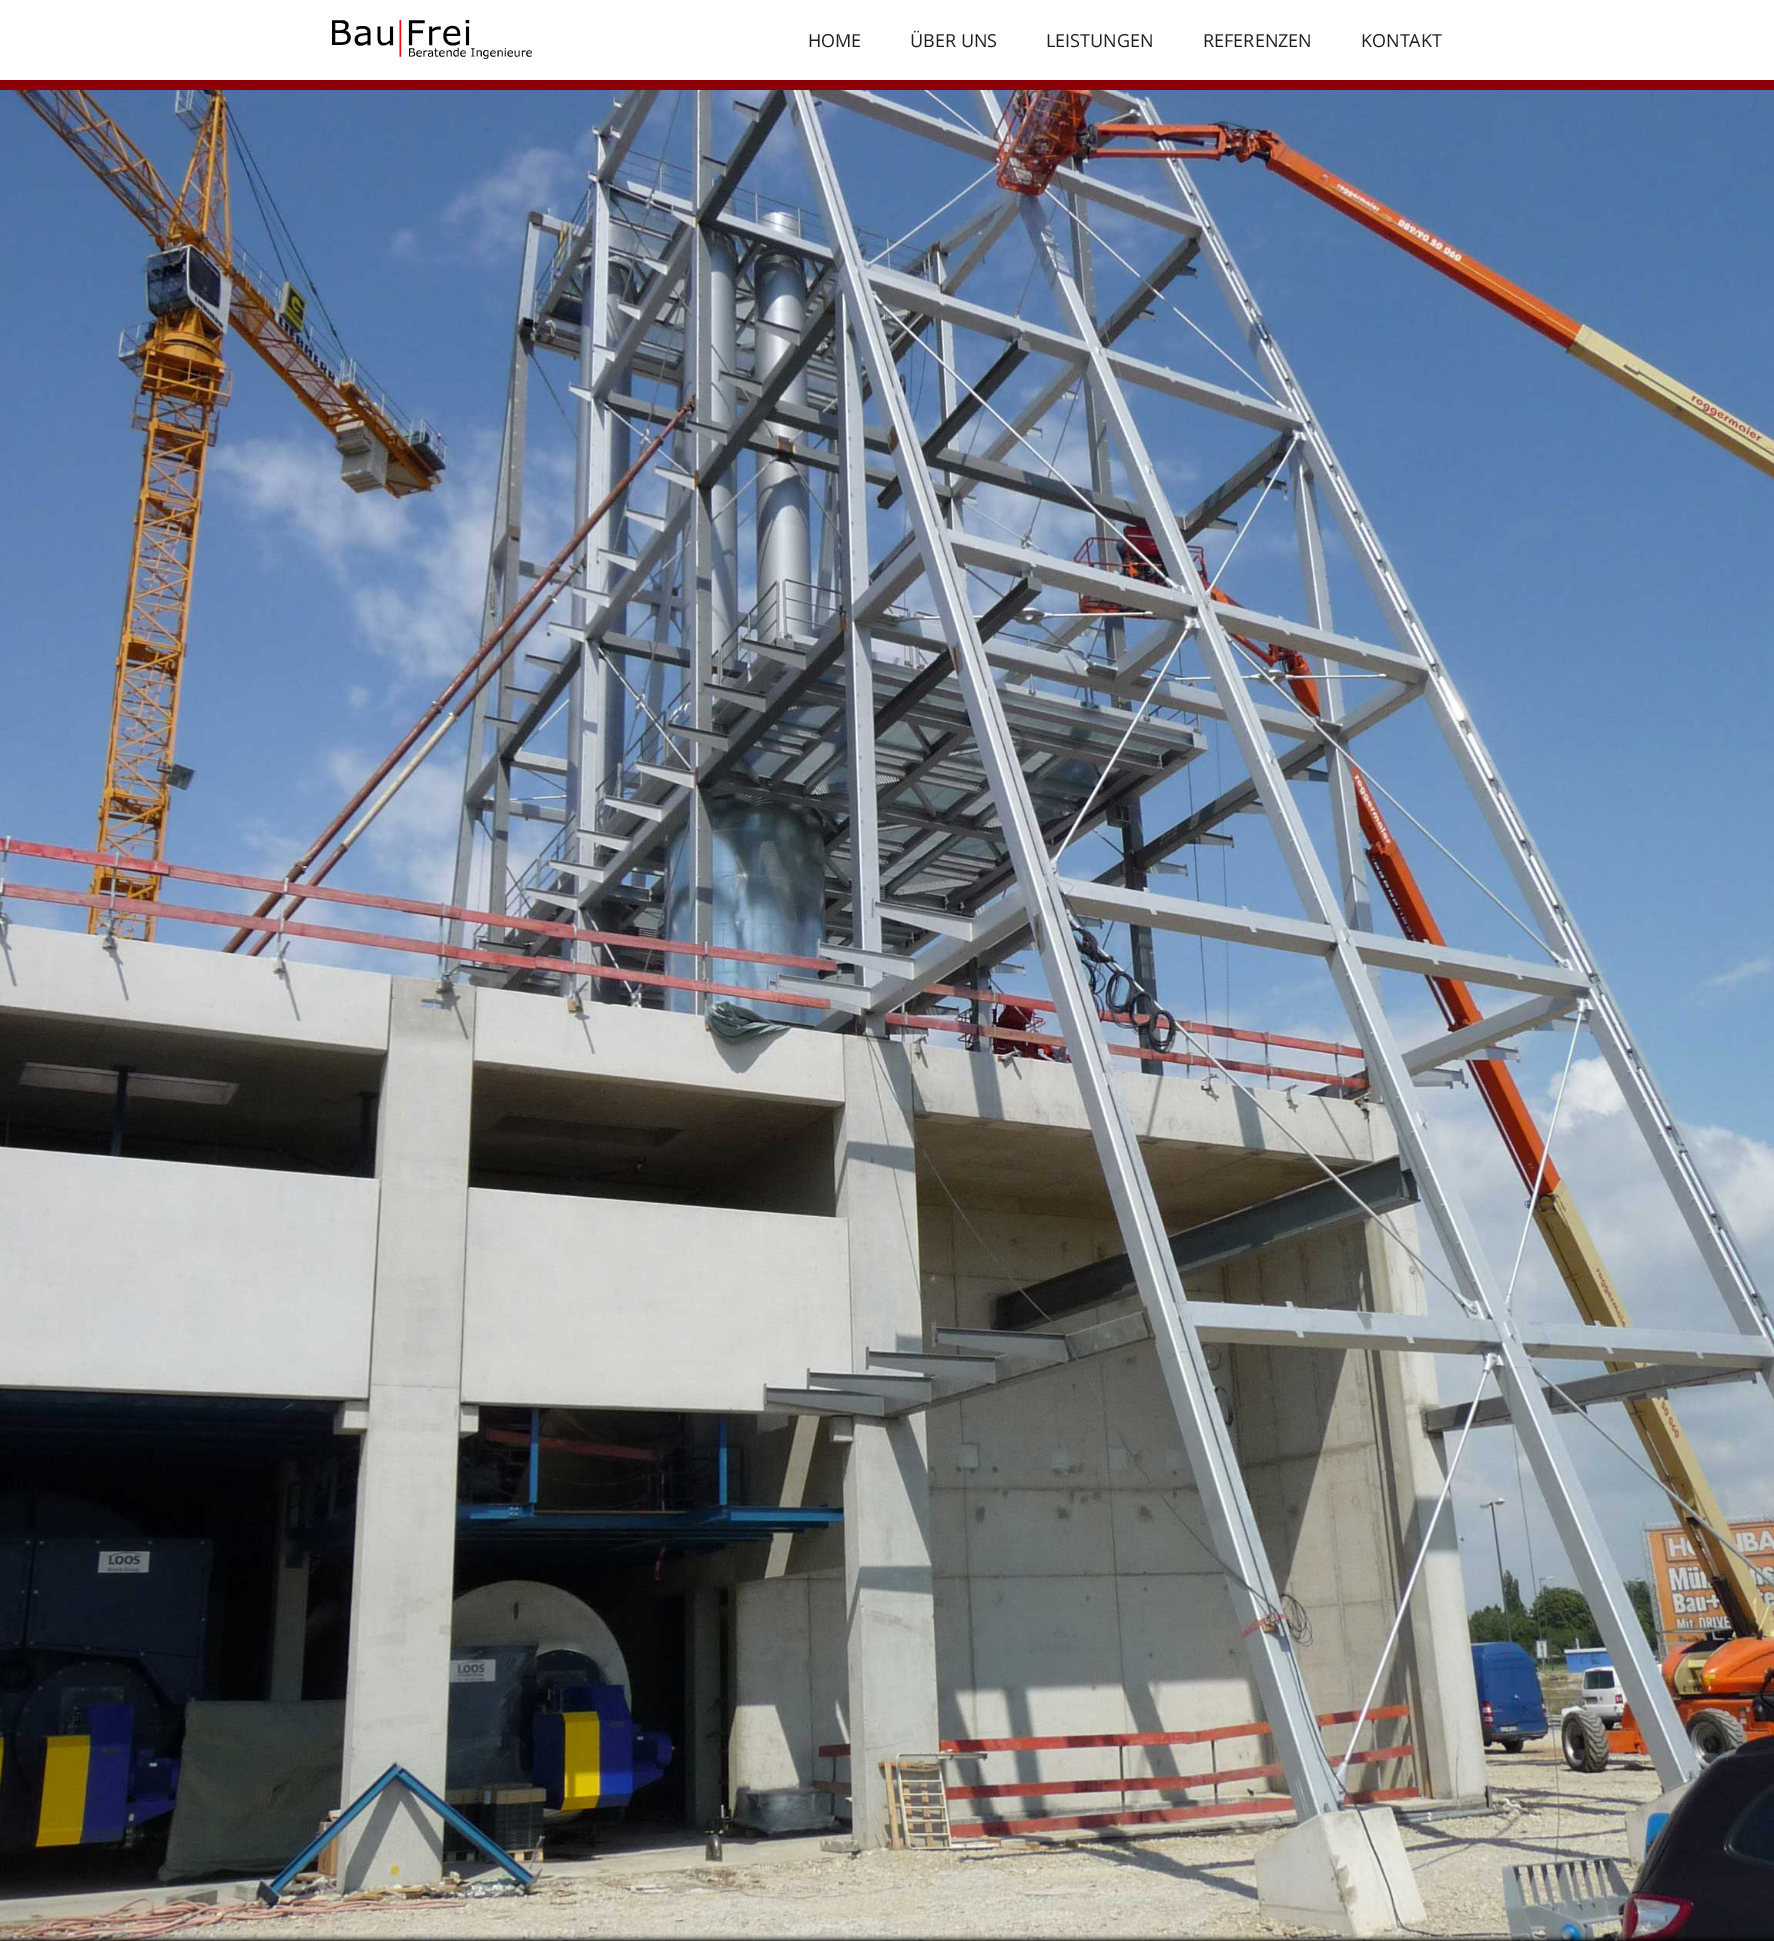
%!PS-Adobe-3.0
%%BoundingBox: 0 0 1774 1941
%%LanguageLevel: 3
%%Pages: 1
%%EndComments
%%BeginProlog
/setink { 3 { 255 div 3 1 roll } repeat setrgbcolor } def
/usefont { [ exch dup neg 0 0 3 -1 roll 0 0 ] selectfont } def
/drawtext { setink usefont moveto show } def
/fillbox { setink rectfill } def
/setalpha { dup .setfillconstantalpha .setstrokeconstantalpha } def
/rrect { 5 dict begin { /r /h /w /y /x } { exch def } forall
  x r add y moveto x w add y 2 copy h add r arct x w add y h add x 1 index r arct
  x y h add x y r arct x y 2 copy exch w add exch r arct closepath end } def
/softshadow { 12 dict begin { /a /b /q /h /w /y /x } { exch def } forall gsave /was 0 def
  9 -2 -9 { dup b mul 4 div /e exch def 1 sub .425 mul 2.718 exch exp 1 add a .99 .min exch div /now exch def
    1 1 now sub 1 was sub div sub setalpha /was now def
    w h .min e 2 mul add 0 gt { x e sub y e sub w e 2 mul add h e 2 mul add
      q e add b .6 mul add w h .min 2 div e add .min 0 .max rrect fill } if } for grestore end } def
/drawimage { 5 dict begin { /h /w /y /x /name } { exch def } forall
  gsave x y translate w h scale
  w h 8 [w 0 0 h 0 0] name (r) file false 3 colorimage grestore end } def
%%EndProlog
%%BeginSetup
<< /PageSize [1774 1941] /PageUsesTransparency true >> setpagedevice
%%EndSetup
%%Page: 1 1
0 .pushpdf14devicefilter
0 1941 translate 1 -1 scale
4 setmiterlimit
0 0 1774 1941 255 255 255 fillbox
0 80 1774 10 141 0 7 fillbox
(assets/img1.rgb) 332 20 200 39 drawimage
(HOME) 808 47 /OpenSans-Regular 18 31 31 31 drawtext
(ÜBER UNS) 910 47 /OpenSans-Regular 18 31 31 31 drawtext
(LEISTUNGEN) 1046 47 /OpenSans-Regular 18 31 31 31 drawtext
(REFERENZEN) 1203 47 /OpenSans-Regular 18 31 31 31 drawtext
(KONTAKT) 1361 47 /OpenSans-Regular 18 31 31 31 drawtext
(assets/img2.rgb) 0 90 1774 1851 drawimage
0 0 0 setink
0 1941 1774 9 0 3 1 softshadow
0 1941 1774 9 0 3 1 softshadow
.poppdf14devicefilter showpage
%%EOF
